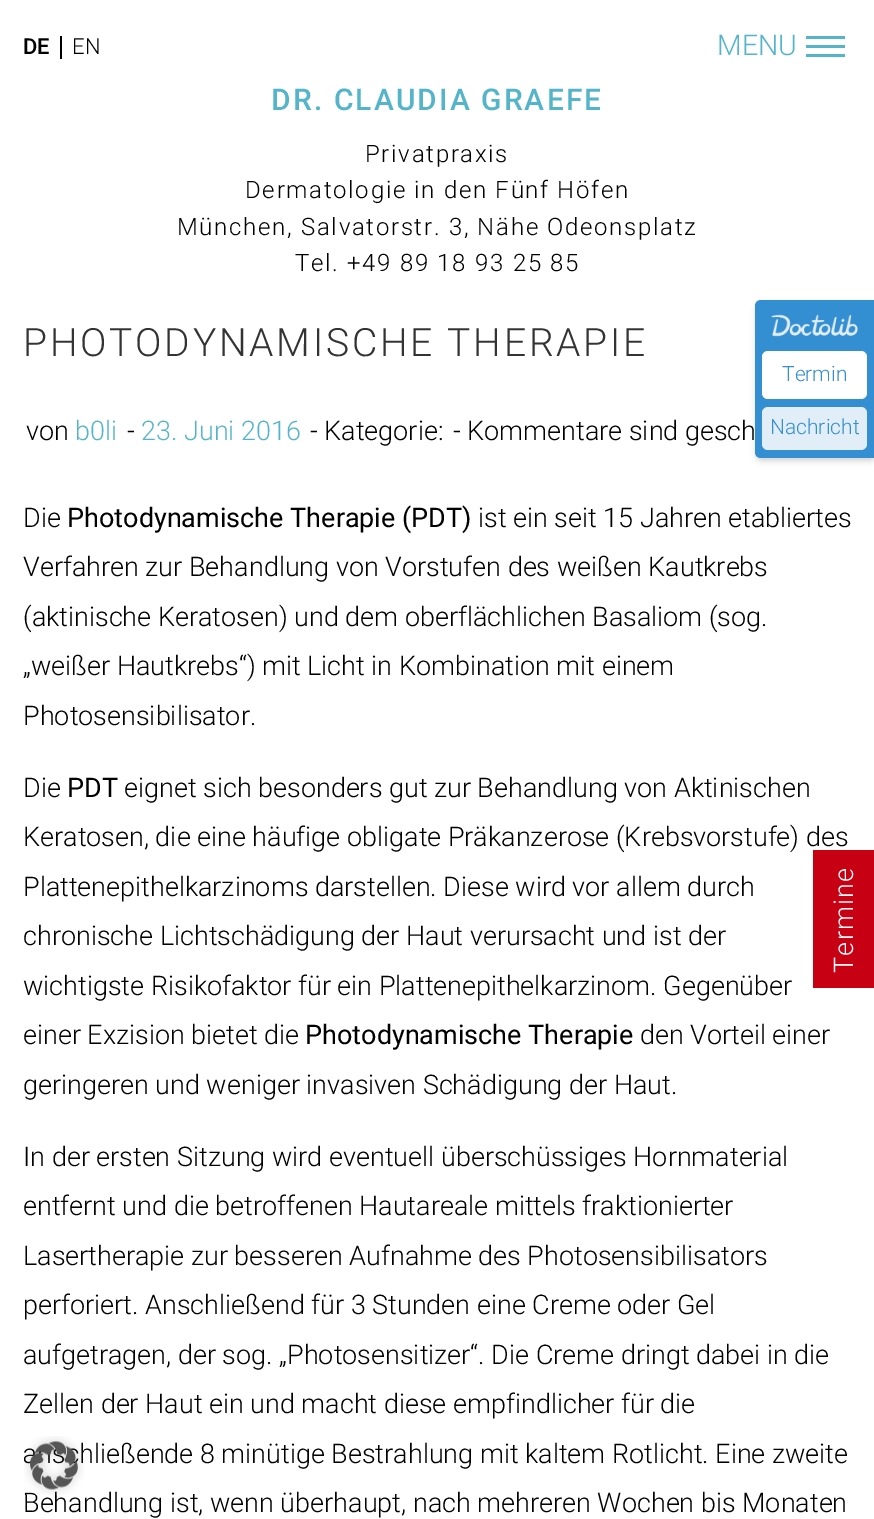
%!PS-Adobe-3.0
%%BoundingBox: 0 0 874 1519
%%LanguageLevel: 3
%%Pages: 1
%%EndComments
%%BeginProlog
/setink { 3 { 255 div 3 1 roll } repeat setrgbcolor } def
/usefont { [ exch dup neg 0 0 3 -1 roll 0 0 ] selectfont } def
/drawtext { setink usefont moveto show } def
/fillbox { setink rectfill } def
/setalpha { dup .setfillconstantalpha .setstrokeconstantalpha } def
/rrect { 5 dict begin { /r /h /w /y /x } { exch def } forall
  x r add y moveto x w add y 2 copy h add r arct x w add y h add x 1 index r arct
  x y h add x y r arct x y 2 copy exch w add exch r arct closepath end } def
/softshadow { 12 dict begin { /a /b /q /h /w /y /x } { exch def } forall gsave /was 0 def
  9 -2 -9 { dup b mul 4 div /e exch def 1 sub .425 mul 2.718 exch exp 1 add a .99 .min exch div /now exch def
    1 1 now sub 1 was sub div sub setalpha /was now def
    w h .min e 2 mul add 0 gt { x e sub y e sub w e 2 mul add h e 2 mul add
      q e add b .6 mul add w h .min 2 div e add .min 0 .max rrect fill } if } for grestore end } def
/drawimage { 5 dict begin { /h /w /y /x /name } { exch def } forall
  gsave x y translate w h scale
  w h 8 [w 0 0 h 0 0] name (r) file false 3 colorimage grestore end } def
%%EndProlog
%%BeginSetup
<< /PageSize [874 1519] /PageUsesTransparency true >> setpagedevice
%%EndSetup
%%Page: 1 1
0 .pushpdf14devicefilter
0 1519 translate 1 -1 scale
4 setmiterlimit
0 0 874 1519 255 255 255 fillbox
60 36 2 23 0 0 0 fillbox
(DE) 23 54 /Roboto-Medium 22 0 0 0 drawtext
(EN) 72 54 /Roboto-Light 22 0 0 0 drawtext
(MENU) 717 55 /Roboto-Light 28.5 84 181 202 drawtext
806 45 39 3 84 181 202 fillbox
806 36 39 3 84 181 202 fillbox
806 54 39 3 84 181 202 fillbox
/Roboto-Medium 30 usefont
271 110 moveto 2.1 0 (DR. CLAUDIA GRAEFE) ashow
/Roboto-Light 24 usefont
0 0 0 setink
365 162 moveto 1.7 0 (Privatpraxis) ashow
245 198 moveto 1.7 0 (Dermatologie in den Fünf Höfen) ashow
177 235 moveto 1.7 0 (München, Salvatorstr. 3, Nähe Odeonsplatz) ashow
295 271 moveto 1.7 0 (Tel. +49 89 18 93 25 85) ashow
/Roboto-Light 39 usefont
51 51 51 setink
23 356 moveto 2.75 0 (PHOTODYNAMISCHE THERAPIE) ashow
(von) 26 440 /Roboto-Light 27 0 0 0 drawtext
(b0li) 75 440 /Roboto-Light 27 84 181 202 drawtext
(-) 127 440 /Roboto-Light 27 0 0 0 drawtext
(23. Juni 2016) 141 440 /Roboto-Light 27 84 181 202 drawtext
(- Kategorie:) 310 440 /Roboto-Light 27 0 0 0 drawtext
(- Kommentare sind gesch) 453 440 /Roboto-Light 27 0 0 0 drawtext
(Die) 23 527 /Roboto-Light 27 0 0 0 drawtext
(Photodynamische Therapie \(PDT\)) 67 527 /Roboto-Regular 27 0 0 0 drawtext
(ist ein seit 15 Jahren etabliertes) 478 527 /Roboto-Light 27 0 0 0 drawtext
(Verfahren zur Behandlung von Vorstufen des weißen Kautkrebs) 23 576 /Roboto-Light 27 0 0 0 drawtext
(\(aktinische Keratosen\) und dem oberflächlichen Basaliom \(sog.) 23 626 /Roboto-Light 27 0 0 0 drawtext
(„weißer Hautkrebs“\) mit Licht in Kombination mit einem) 23 675 /Roboto-Light 27 0 0 0 drawtext
(Photosensibilisator.) 23 725 /Roboto-Light 27 0 0 0 drawtext
(Die) 23 797 /Roboto-Light 27 0 0 0 drawtext
(PDT) 67 797 /Roboto-Regular 27 0 0 0 drawtext
(eignet sich besonders gut zur Behandlung von Aktinischen) 124 797 /Roboto-Light 27 0 0 0 drawtext
(Keratosen, die eine häufige obligate Präkanzerose \(Krebsvorstufe\) des) 23 846 /Roboto-Light 27 0 0 0 drawtext
(Plattenepithelkarzinoms darstellen. Diese wird vor allem durch) 23 896 /Roboto-Light 27 0 0 0 drawtext
(chronische Lichtschädigung der Haut verursacht und ist der) 23 945 /Roboto-Light 27 0 0 0 drawtext
(wichtigste Risikofaktor für ein Plattenepithelkarzinom. Gegenüber) 23 995 /Roboto-Light 27 0 0 0 drawtext
(einer Exzision bietet die) 23 1044 /Roboto-Light 27 0 0 0 drawtext
(Photodynamische Therapie) 305 1044 /Roboto-Regular 27 0 0 0 drawtext
(den Vorteil einer) 640 1044 /Roboto-Light 27 0 0 0 drawtext
(geringeren und weniger invasiven Schädigung der Haut.) 23 1094 /Roboto-Light 27 0 0 0 drawtext
(In der ersten Sitzung wird eventuell überschüssiges Hornmaterial) 23 1166 /Roboto-Light 27 0 0 0 drawtext
(entfernt und die betroffenen Hautareale mittels fraktionierter) 23 1215 /Roboto-Light 27 0 0 0 drawtext
(Lasertherapie zur besseren Aufnahme des Photosensibilisators) 23 1265 /Roboto-Light 27 0 0 0 drawtext
(perforiert. Anschließend für 3 Stunden eine Creme oder Gel) 23 1314 /Roboto-Light 27 0 0 0 drawtext
(aufgetragen, der sog. „Photosensitizer“. Die Creme dringt dabei in die) 23 1364 /Roboto-Light 27 0 0 0 drawtext
(Zellen der Haut ein und macht diese empfindlicher für die) 23 1413 /Roboto-Light 27 0 0 0 drawtext
(hließende 8 minütige Bestrahlung mit kaltem Rotlicht. Eine zweite) 79 1463 /Roboto-Light 27 0 0 0 drawtext
(Behandlung ist, wenn überhaupt, nach mehreren Wochen bis Monaten) 23 1512 /Roboto-Light 27 0 0 0 drawtext
gsave
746 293 moveto 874 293 lineto 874 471 lineto 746 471 lineto closepath 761 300 moveto 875 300 lineto 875 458 lineto 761 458 lineto 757.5 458 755 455.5 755 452 curveto 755 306 lineto 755 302.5 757.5 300 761 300 curveto closepath eoclip newpath
756 303 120 158 6 3 0.17 softshadow
grestore
0.85 setalpha
16 122 202 setink
761 300 moveto 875 300 lineto 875 458 lineto 761 458 lineto 757.5 458 755 455.5 755 452 curveto 755 306 lineto 755 302.5 757.5 300 761 300 curveto closepath fill
1 setalpha
(assets/img1.rgb) 771 314 87 23 drawimage
255 255 255 setink
762 351 105 48 6 rrect fill
(Termin) 782 381 /Roboto-Light 21 52 142 210 drawtext
0.85 setalpha
255 255 255 setink
762 407 105 43 6 rrect fill
1 setalpha
(Nachricht) 770 434 /Roboto-Light 21 52 142 210 drawtext
813 850 61 138 199 0 20 fillbox
/Roboto-Light 27 usefont
255 255 255 setink
gsave 853 973 translate -90 rotate 0 0 moveto 1.25 0 (Termine) ashow grestore
(assets/img2.rgb) 24 1436 60 59 drawimage
.poppdf14devicefilter showpage
%%EOF
